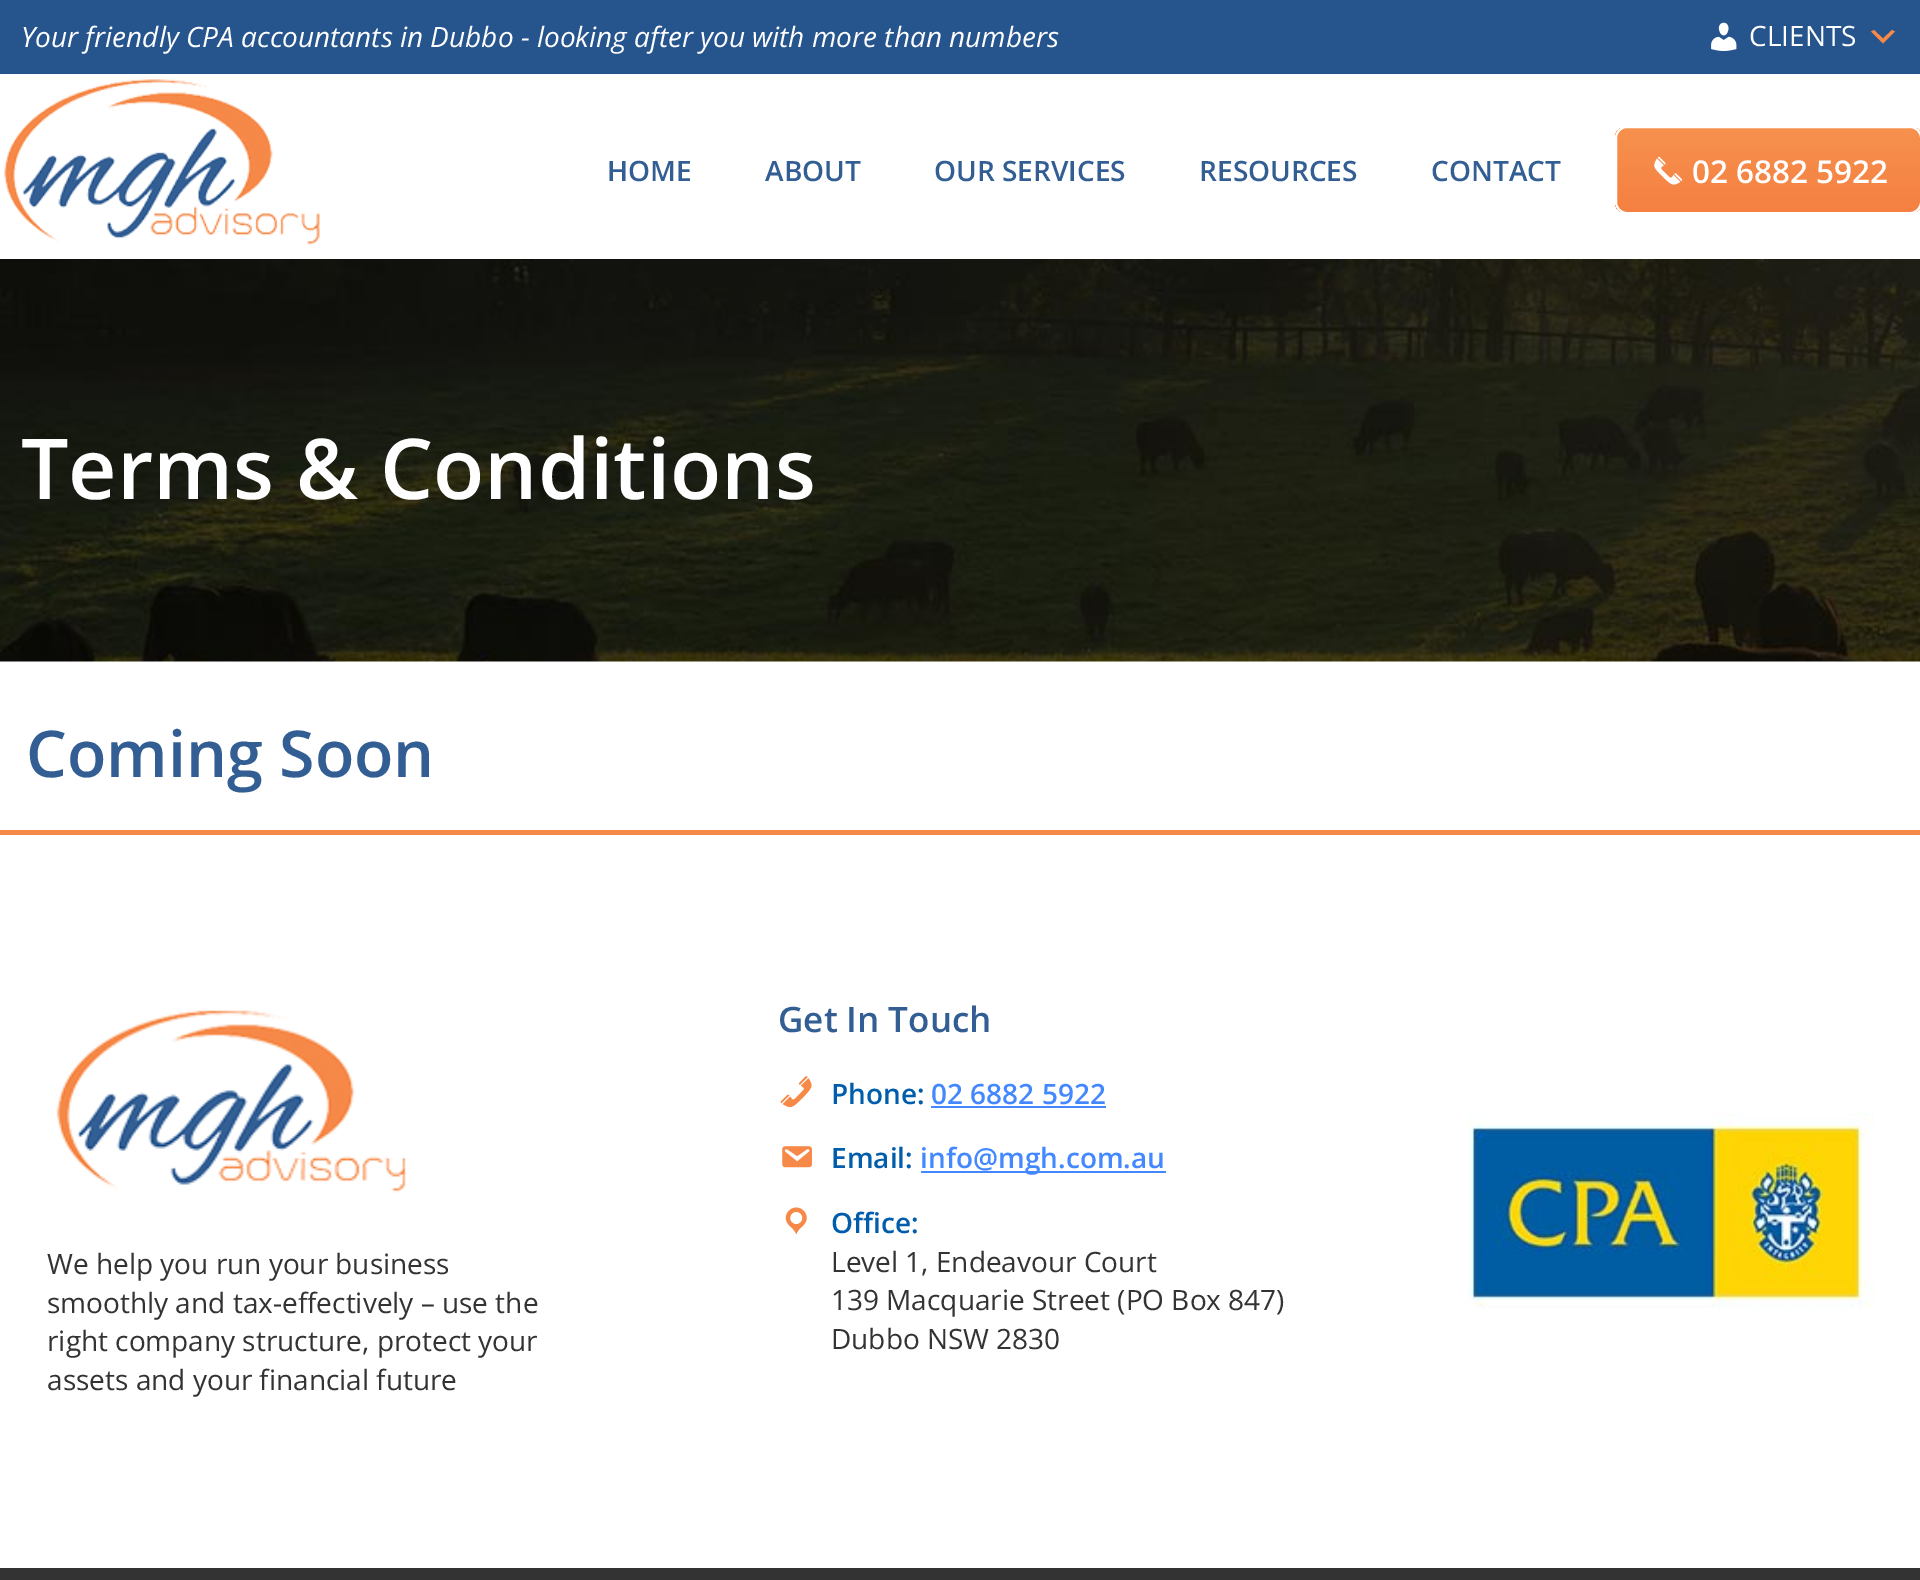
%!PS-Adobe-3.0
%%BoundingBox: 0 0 1920 1580
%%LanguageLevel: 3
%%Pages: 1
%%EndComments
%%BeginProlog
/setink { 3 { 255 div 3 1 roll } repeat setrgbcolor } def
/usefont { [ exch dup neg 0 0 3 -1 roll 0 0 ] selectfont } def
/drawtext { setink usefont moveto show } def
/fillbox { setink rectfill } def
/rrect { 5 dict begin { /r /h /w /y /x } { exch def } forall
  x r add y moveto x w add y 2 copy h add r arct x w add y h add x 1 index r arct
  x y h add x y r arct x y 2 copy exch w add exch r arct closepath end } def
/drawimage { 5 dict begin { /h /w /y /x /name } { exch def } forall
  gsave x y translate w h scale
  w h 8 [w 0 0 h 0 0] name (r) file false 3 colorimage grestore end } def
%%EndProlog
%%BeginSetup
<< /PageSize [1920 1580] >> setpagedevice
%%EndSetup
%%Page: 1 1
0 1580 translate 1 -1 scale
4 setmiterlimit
0 0 1920 1580 255 255 255 fillbox
0 0 1920 74 38 84 141 fillbox
(Your friendly CPA accountants in Dubbo - looking after you with more than numbers) 21 47 /OpenSans-Italic 28 255 255 255 drawtext
(assets/img1.rgb) 1711 22 26 29 drawimage
(CLIENTS) 1749 46 /OpenSans-Regular 28 255 255 255 drawtext
246 137 72 setink
1874 30 moveto 1883 38.5 lineto 1892 30 lineto 1895 31.5 lineto 1883 43.5 lineto 1871 31.5 lineto closepath fill
(assets/img2.rgb) 4 79 316 166 drawimage
(HOME) 607 181 /OpenSans-SemiBold 28 50 94 148 drawtext
(ABOUT) 765 181 /OpenSans-SemiBold 28 50 94 148 drawtext
(OUR SERVICES) 934 181 /OpenSans-SemiBold 28 50 94 148 drawtext
(RESOURCES) 1199 181 /OpenSans-SemiBold 28 50 94 148 drawtext
(CONTACT) 1431 181 /OpenSans-SemiBold 28 50 94 148 drawtext
gsave
1615 126 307 88 12 rrect clip newpath
gsave 1615 128 moveto 1920 128 lineto 1920 212 lineto 1615 212 lineto closepath clip newpath
<< /ShadingType 2 /ColorSpace /DeviceRGB /Coords [1768 128 1768 212] /Extend [true true] /Function << /FunctionType 2 /Domain [0 1] /C0 [0.969 0.569 0.302] /C1 [0.961 0.502 0.259] /N 1 >> >> shfill grestore
grestore
255 255 255 setink
2 setlinewidth
1616 127 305 86 11 rrect stroke
(assets/img3.rgb) 1654 156 29 29 drawimage
(02 6882 5922) 1692 183 /OpenSans-SemiBold 31.5 255 255 255 drawtext
(assets/img4.rgb) 0 259 1920 403 drawimage
(Terms & Conditions) 21 499 /OpenSans-SemiBold 84 255 255 255 drawtext
(Coming Soon) 26 777 /OpenSans-SemiBold 64.5 50 94 148 drawtext
0 830 1920 5 246 136 72 fillbox
(Get In Touch) 778 1032 /OpenSans-SemiBold 35 50 94 148 drawtext
(assets/img5.rgb) 780 1076 32 32 drawimage
(Phone:) 831 1104 /OpenSans-SemiBold 28 0 93 171 drawtext
(02 6882 5922) 931 1104 /OpenSans-SemiBold 28 68 136 255 drawtext
931 1106 175 2 68 136 255 fillbox
(assets/img6.rgb) 782 1146 30 22 drawimage
(Email:) 831 1168 /OpenSans-SemiBold 28 0 93 171 drawtext
921 1171 245 2 68 136 255 fillbox
(info@mgh.com.au) 920 1168 /OpenSans-SemiBold 28 68 136 255 drawtext
(assets/img7.rgb) 785 1207 22 28 drawimage
(Office:) 831 1233 /OpenSans-SemiBold 28 0 93 171 drawtext
(Level 1, Endeavour Court) 831 1272 /OpenSans-Regular 28 51 51 51 drawtext
(139 Macquarie Street \(PO Box 847\)) 831 1310 /OpenSans-Regular 28 51 51 51 drawtext
(Dubbo NSW 2830) 831 1349 /OpenSans-Regular 28 51 51 51 drawtext
(assets/img8.rgb) 1467 1113 407 196 drawimage
(assets/img9.rgb) 56 1010 350 183 drawimage
(We help you run your business) 47 1274 /OpenSans-Regular 28 51 51 51 drawtext
(smoothly and tax-effectively – use the) 47 1313 /OpenSans-Regular 28 51 51 51 drawtext
(right company structure, protect your) 47 1351 /OpenSans-Regular 28 51 51 51 drawtext
(assets and your financial future) 47 1390 /OpenSans-Regular 28 51 51 51 drawtext
0 1568 1920 12 51 51 51 fillbox
showpage
%%EOF
